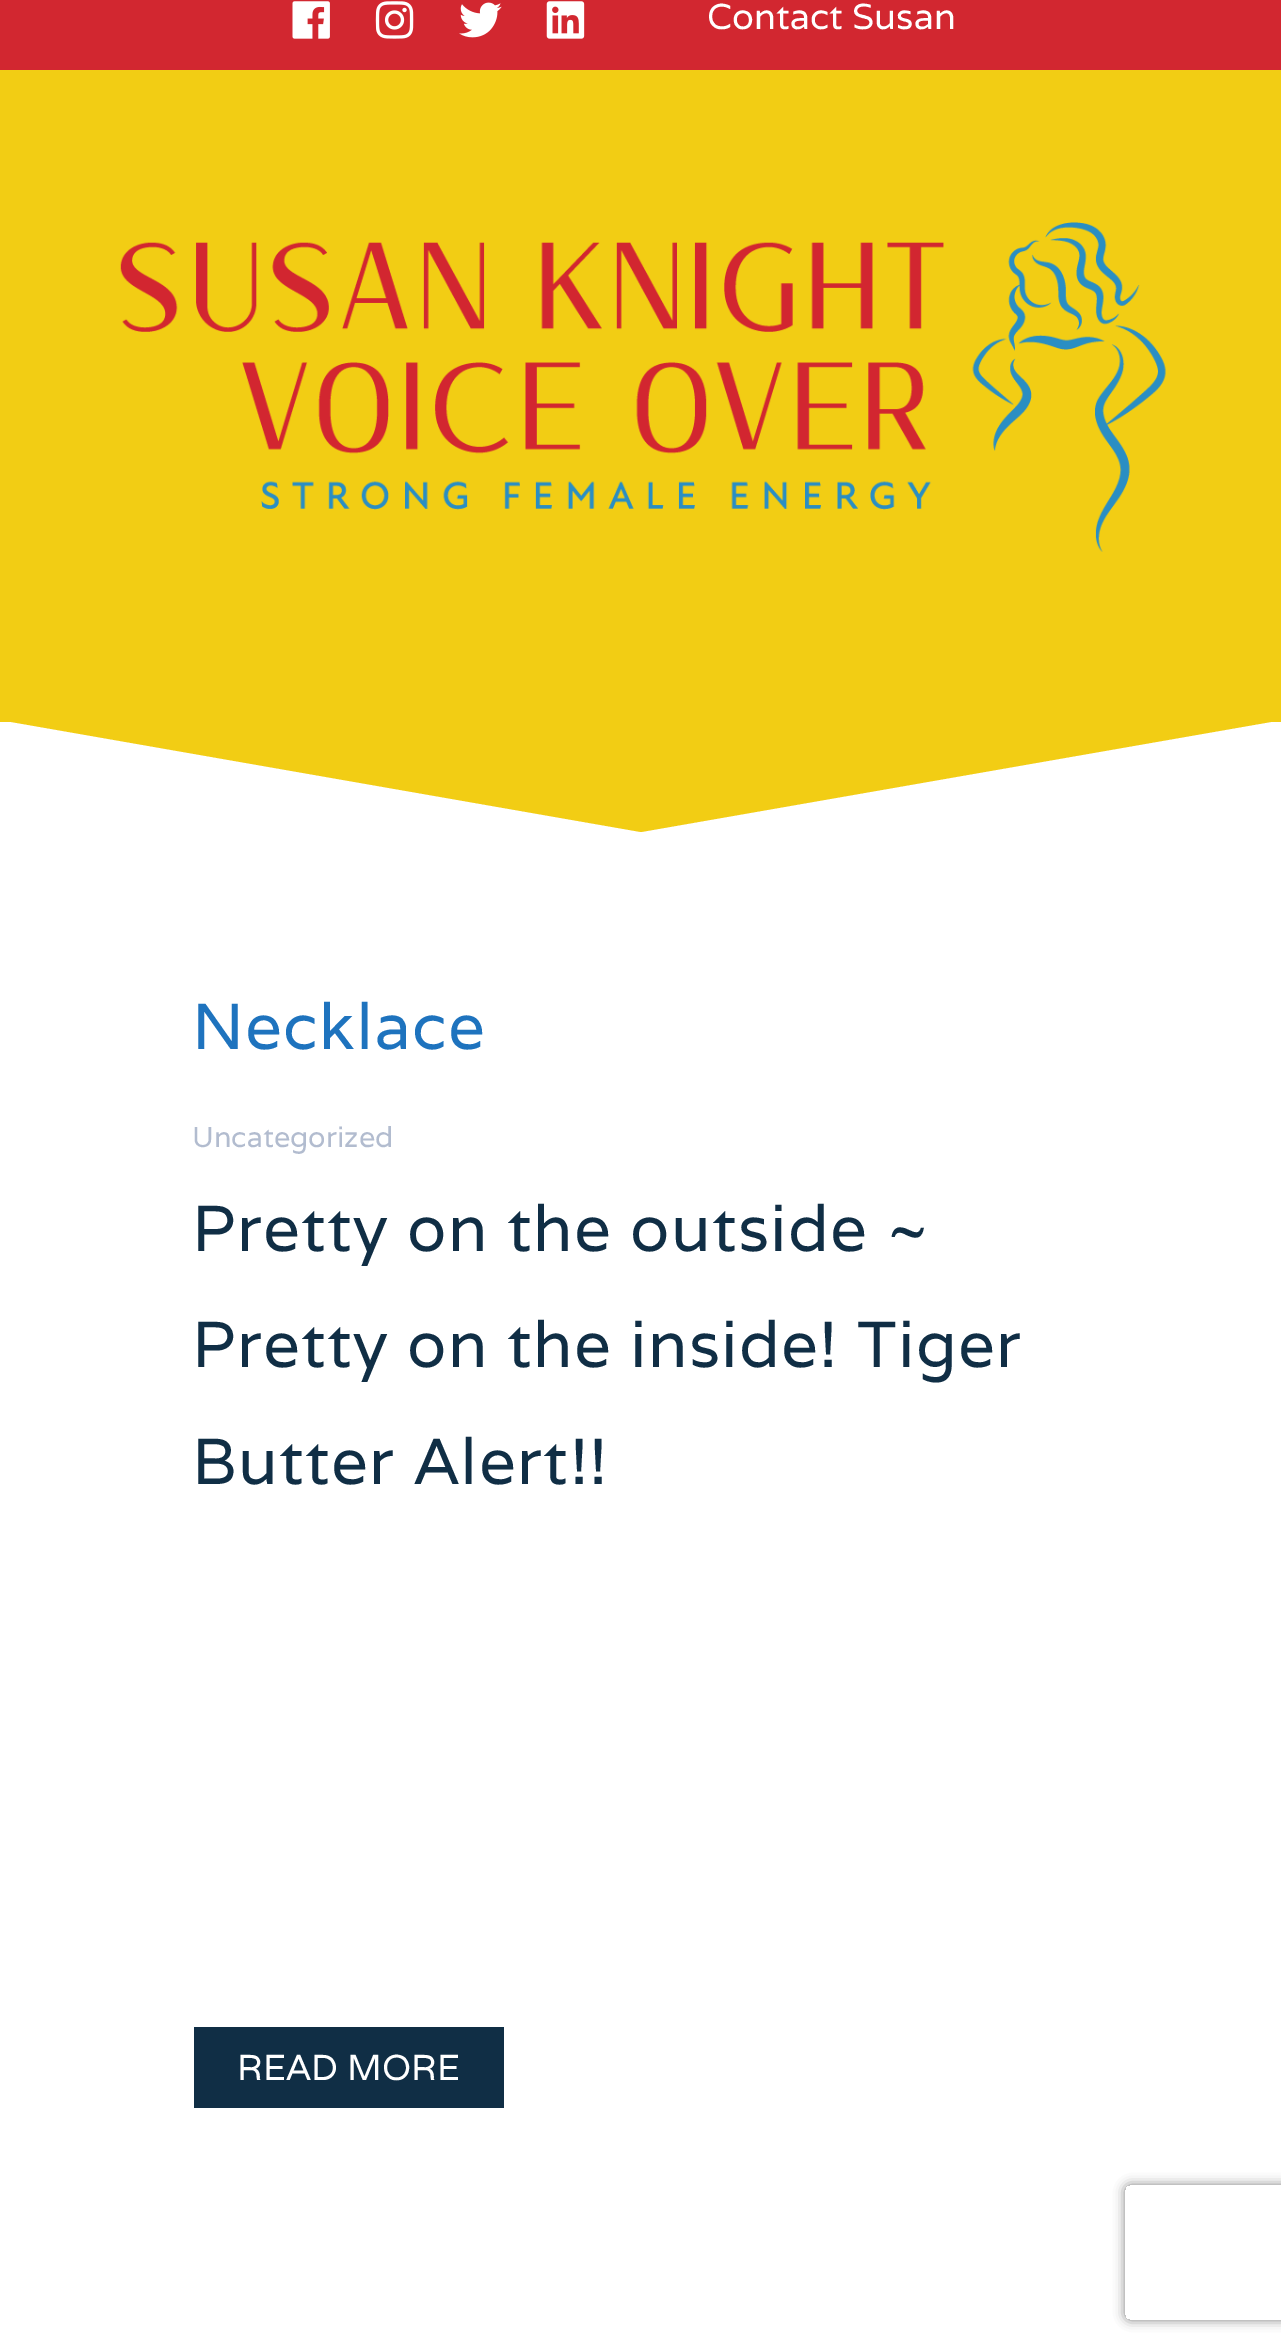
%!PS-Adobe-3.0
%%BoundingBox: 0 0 1281 2351
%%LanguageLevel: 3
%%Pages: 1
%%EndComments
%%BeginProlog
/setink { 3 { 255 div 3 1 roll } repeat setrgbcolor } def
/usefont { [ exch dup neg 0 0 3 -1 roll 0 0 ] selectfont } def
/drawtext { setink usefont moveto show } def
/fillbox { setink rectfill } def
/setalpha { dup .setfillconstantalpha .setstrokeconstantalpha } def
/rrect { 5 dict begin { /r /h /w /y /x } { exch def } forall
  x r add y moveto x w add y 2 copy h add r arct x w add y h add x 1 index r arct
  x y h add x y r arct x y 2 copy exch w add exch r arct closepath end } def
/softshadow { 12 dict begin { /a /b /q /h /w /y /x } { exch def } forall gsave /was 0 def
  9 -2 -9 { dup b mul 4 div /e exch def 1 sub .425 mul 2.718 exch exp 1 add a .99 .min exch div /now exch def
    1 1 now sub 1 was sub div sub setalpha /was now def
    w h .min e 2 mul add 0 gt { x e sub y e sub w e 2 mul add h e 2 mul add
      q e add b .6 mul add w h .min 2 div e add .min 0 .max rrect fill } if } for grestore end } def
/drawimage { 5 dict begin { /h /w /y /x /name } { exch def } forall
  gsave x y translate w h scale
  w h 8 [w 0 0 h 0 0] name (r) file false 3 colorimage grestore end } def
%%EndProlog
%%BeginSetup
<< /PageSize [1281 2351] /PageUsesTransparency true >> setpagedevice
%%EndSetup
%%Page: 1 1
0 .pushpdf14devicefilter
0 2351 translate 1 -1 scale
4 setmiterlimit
0 0 1281 2351 255 255 255 fillbox
0 0 1281 70 210 39 48 fillbox
(assets/img1.rgb) 292 1 38 38 drawimage
(assets/img2.rgb) 375 1 39 38 drawimage
(assets/img3.rgb) 459 2 43 36 drawimage
(assets/img4.rgb) 546 1 39 38 drawimage
(Contact Susan) 707 29 /Varela-Regular 36 255 255 255 drawtext
242 205 20 setink
0 720 moveto 641 832 lineto 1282 720 lineto closepath fill
0 70 1281 652 242 205 20 fillbox
(assets/img5.rgb) 120 222 1046 330 drawimage
/Varela-Regular 64.75 usefont
30 115 190 setink
192 1049 moveto 1.3 0 (Necklace) ashow
(Uncategorized) 192 1147 /Varela-Regular 28.75 178 188 207 drawtext
/Varela-Regular 64.75 usefont
16 46 69 setink
192 1251 moveto 1.3 0 (Pretty on the outside ~) ashow
192 1367 moveto 1.3 0 (Pretty on the inside! Tiger) ashow
192 1484 moveto 1.3 0 (Butter Alert!!) ashow
194 2027 310 81 16 46 69 fillbox
(READ MORE) 237 2080 /Varela-Regular 36 255 255 255 drawtext
gsave
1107 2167 moveto 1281 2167 lineto 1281 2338 lineto 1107 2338 lineto closepath 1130 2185 moveto 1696 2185 lineto 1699 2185 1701 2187 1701 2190 curveto 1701 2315 lineto 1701 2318 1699 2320 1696 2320 curveto 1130 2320 lineto 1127 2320 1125 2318 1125 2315 curveto 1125 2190 lineto 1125 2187 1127 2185 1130 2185 curveto closepath eoclip newpath
128 128 128 setink
1125 2185 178 135 5 5.5 1 softshadow
grestore
.poppdf14devicefilter showpage
%%EOF
